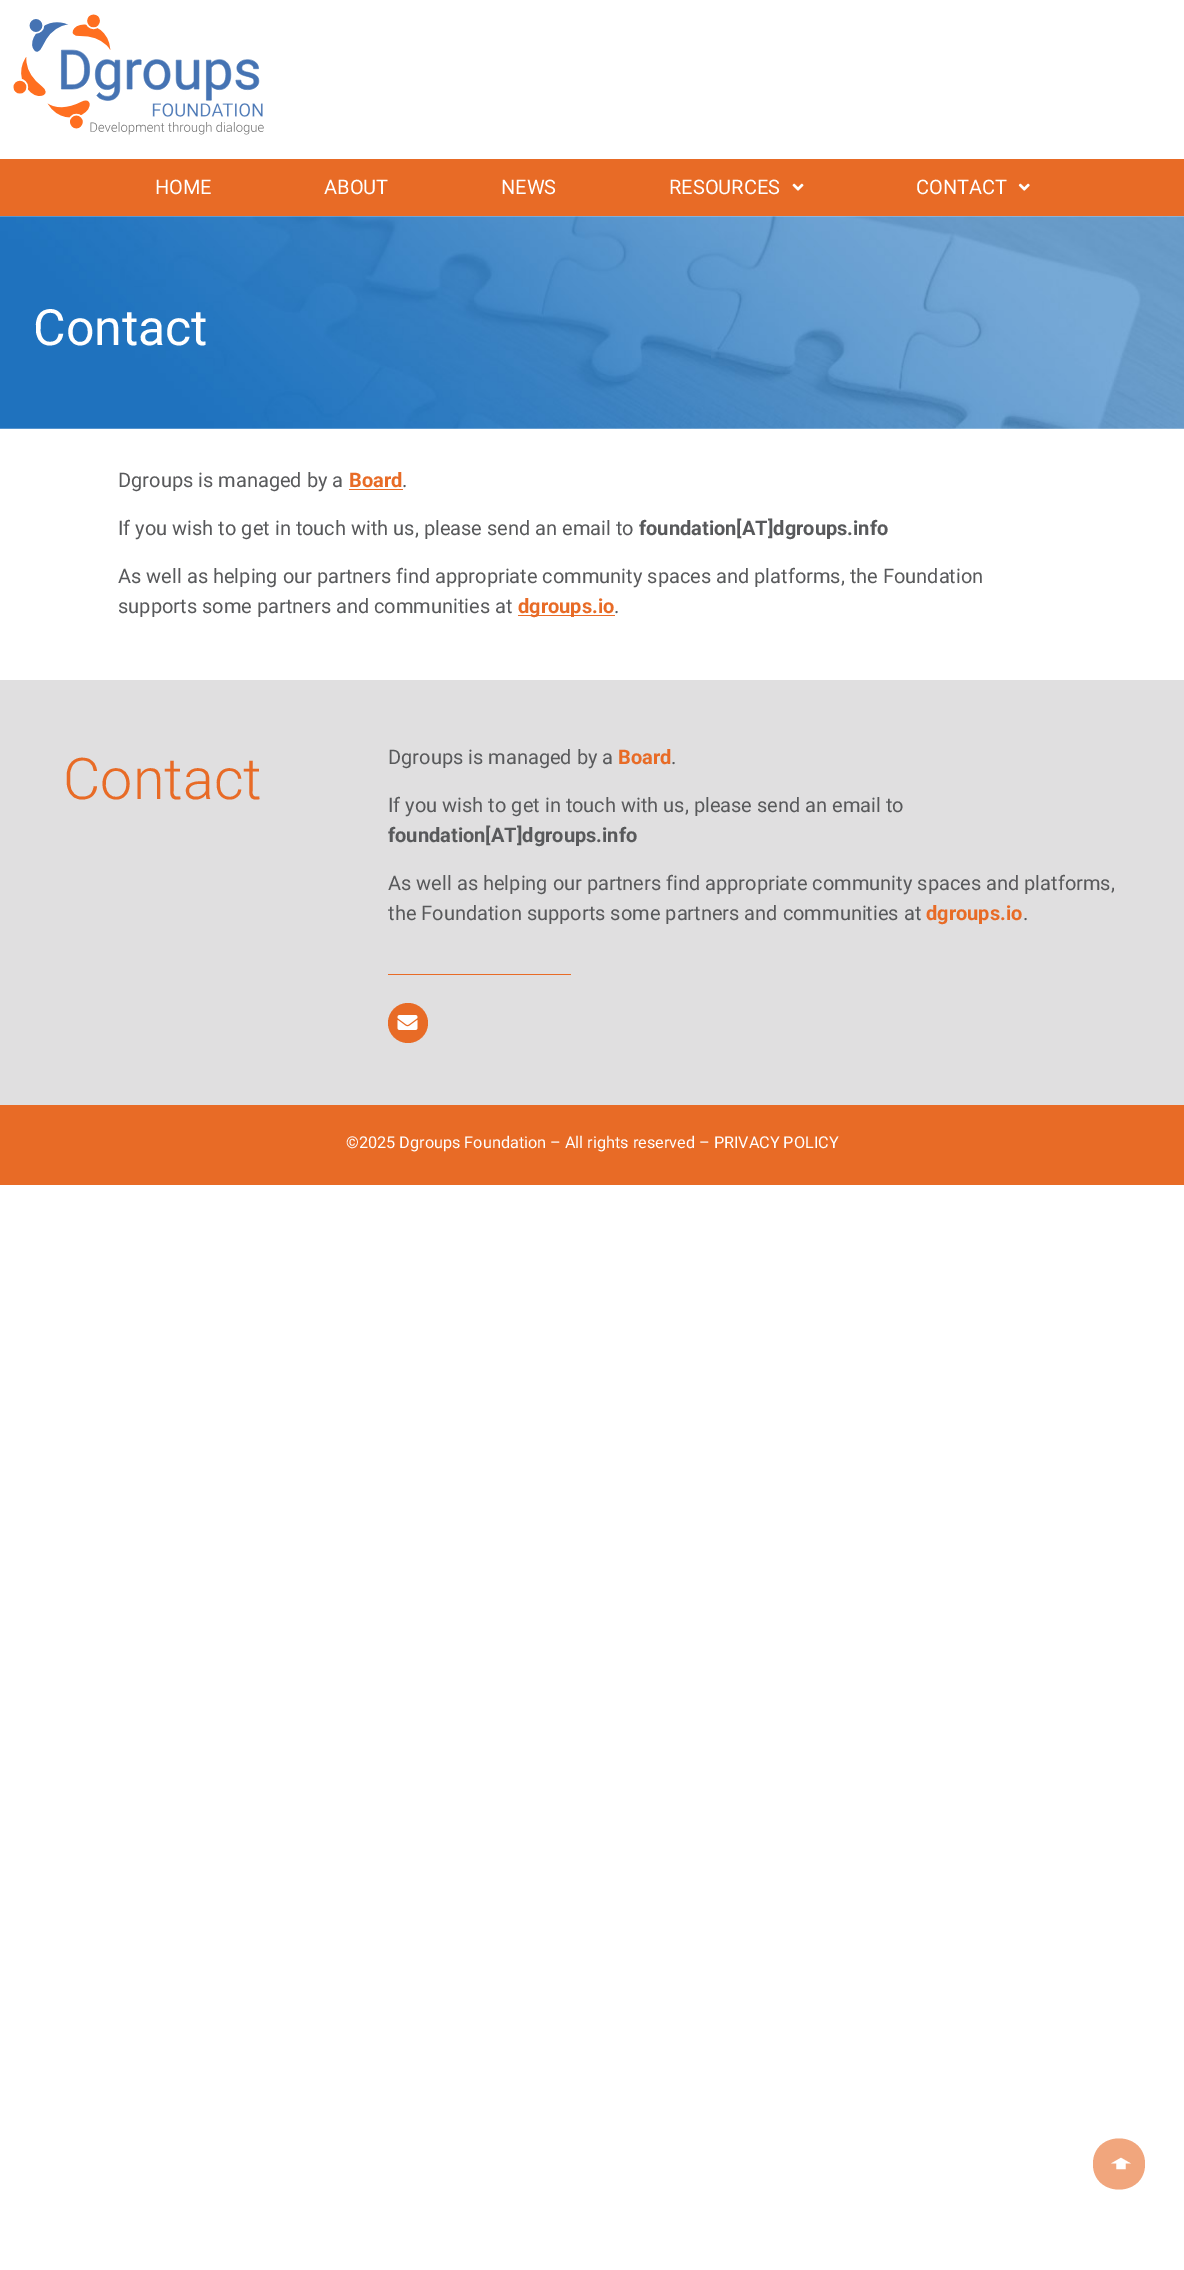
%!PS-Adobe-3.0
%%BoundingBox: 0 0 1184 2270
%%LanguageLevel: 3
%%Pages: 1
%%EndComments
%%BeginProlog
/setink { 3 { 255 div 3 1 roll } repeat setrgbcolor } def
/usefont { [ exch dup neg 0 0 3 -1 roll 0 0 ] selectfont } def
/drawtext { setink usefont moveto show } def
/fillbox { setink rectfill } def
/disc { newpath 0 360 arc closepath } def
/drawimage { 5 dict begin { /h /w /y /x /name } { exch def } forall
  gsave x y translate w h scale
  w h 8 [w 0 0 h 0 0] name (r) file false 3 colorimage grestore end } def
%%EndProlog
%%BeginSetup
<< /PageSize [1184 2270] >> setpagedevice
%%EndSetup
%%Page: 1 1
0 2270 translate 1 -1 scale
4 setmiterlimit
0 0 1184 2270 255 255 255 fillbox
(assets/img1.rgb) 13 14 251 121 drawimage
0 159 1184 57 232 107 38 fillbox
(HOME) 155 194 /Roboto-Regular 20 255 255 255 drawtext
(ABOUT) 324 194 /Roboto-Regular 20 255 255 255 drawtext
(NEWS) 501 194 /Roboto-Regular 20 255 255 255 drawtext
(RESOURCES) 669 194 /Roboto-Regular 20 255 255 255 drawtext
(assets/img2.rgb) 792 183 12 8 drawimage
(CONTACT) 916 194 /Roboto-Regular 20 255 255 255 drawtext
(assets/img3.rgb) 1018 183 12 8 drawimage
(assets/img4.rgb) 0 216 1184 213 drawimage
(Contact) 33 345 /Roboto-Regular 50 255 255 255 drawtext
(Dgroups is managed by a) 118 487 /Roboto-Regular 20 88 89 91 drawtext
(Board) 349 487 /Roboto-Bold 20 232 107 38 drawtext
349 489 54 1 232 107 38 fillbox
(.) 402 487 /Roboto-Regular 20 88 89 91 drawtext
(If you wish to get in touch with us, please send an email to) 118 535 /Roboto-Regular 20 88 89 91 drawtext
(foundation[AT]dgroups.info) 639 535 /Roboto-Bold 20 88 89 91 drawtext
(As well as helping our partners find appropriate community spaces and platforms, the Foundation) 118 583 /Roboto-Regular 20 88 89 91 drawtext
(supports some partners and communities at) 118 613 /Roboto-Regular 20 88 89 91 drawtext
518 615 97 1 232 107 38 fillbox
(dgroups.io) 518 613 /Roboto-Bold 20 232 107 38 drawtext
(.) 614 613 /Roboto-Regular 20 88 89 91 drawtext
0 680 1184 425 224 223 224 fillbox
(Contact) 63 799 /Roboto-Light 57.5 232 107 38 drawtext
(Dgroups is managed by a) 388 764 /Roboto-Regular 20 88 89 91 drawtext
(Board) 618 764 /Roboto-Bold 20 232 107 38 drawtext
(.) 671 764 /Roboto-Regular 20 88 89 91 drawtext
(If you wish to get in touch with us, please send an email to) 388 812 /Roboto-Regular 20 88 89 91 drawtext
(foundation[AT]dgroups.info) 388 842 /Roboto-Bold 20 88 89 91 drawtext
(As well as helping our partners find appropriate community spaces and platforms,) 388 890 /Roboto-Regular 20 88 89 91 drawtext
(the Foundation supports some partners and communities at) 388 920 /Roboto-Regular 20 88 89 91 drawtext
(dgroups.io) 926 920 /Roboto-Bold 20 232 107 38 drawtext
(.) 1023 920 /Roboto-Regular 20 88 89 91 drawtext
388 974 183 1 232 107 38 fillbox
408 1023 20 disc fill
(assets/img5.rgb) 397 1015 21 15 drawimage
0 1105 1184 80 232 107 38 fillbox
(©2025 Dgroups Foundation – All rights reserved – PRIVACY POLICY) 346 1148 /Roboto-Regular 16.25 255 255 255 drawtext
241 166 125 setink
1093 2164 moveto 1093 2130 1145 2130 1145 2164 curveto 1145 2198 1093 2198 1093 2164 curveto closepath fill
/DejaVuSans-Regular 32 usefont
255 255 255 setink
gsave 1131 2177 translate -90 rotate 0 0 moveto (➧) show grestore
showpage
%%EOF
